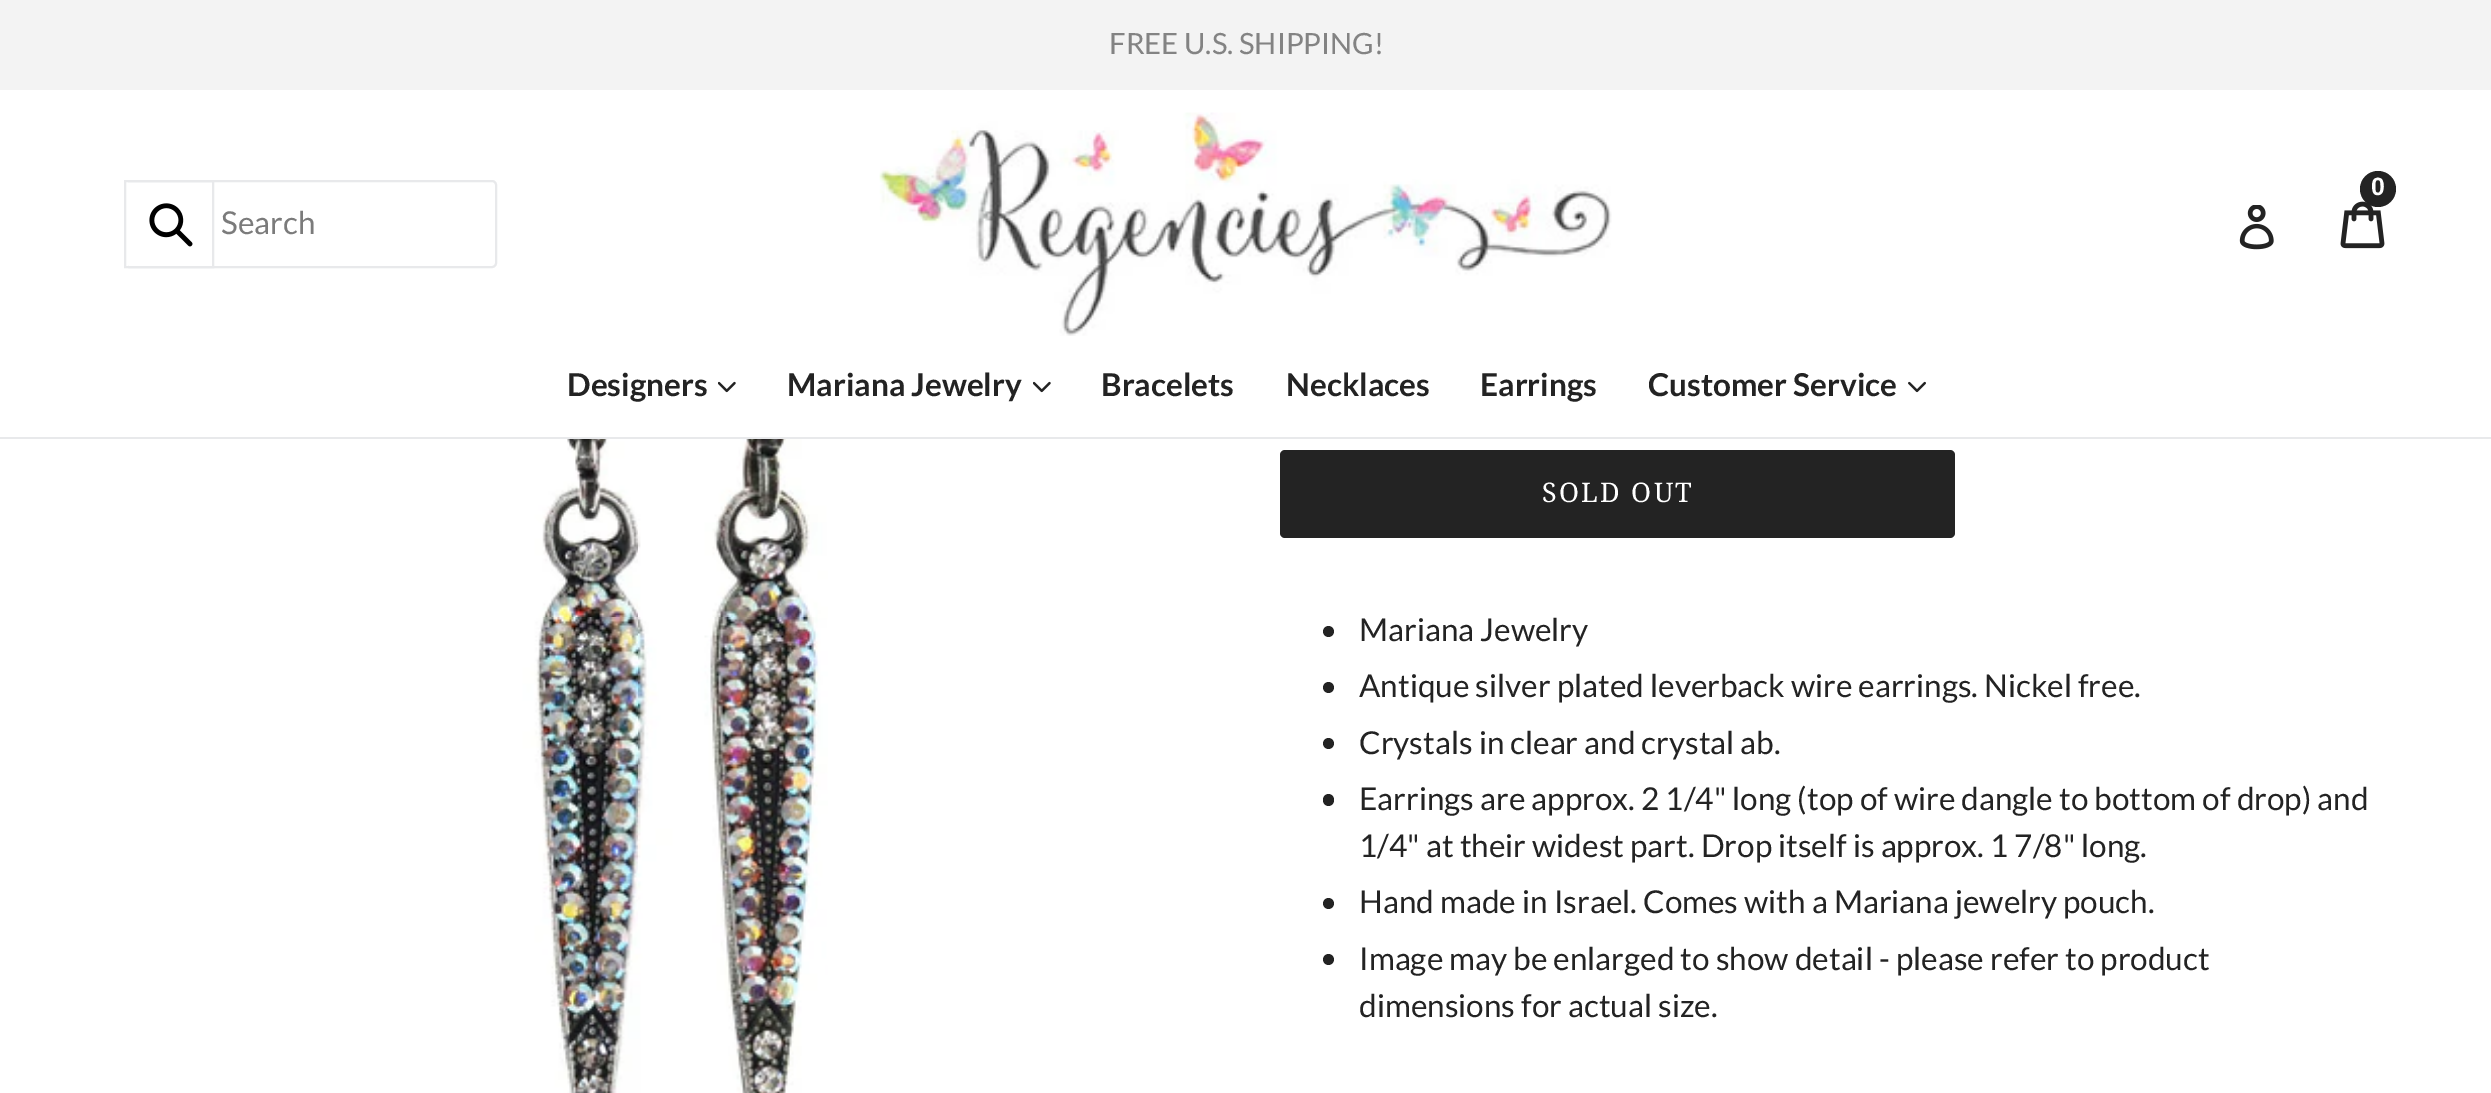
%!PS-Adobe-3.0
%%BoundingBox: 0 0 2491 1093
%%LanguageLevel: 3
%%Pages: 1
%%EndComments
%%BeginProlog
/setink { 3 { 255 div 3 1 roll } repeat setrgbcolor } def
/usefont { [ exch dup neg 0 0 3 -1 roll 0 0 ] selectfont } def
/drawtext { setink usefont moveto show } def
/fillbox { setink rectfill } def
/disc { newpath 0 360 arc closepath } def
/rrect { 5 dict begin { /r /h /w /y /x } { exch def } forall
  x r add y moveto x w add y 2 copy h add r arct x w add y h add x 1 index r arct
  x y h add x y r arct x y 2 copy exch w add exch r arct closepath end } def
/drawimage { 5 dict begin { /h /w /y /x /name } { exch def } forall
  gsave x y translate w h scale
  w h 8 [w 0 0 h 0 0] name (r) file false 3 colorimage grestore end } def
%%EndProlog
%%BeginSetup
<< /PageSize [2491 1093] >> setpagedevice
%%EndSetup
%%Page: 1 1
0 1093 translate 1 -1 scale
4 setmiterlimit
0 0 2491 1093 255 255 255 fillbox
0 0 2491 90 243 243 243 fillbox
(FREE U.S. SHIPPING!) 1109 54 /Lato-Regular 29.25 131 131 131 drawtext
(assets/img1.rgb) 879 112 733 224 drawimage
(assets/img2.rgb) 2340 201 45 48 drawimage
35 35 35 setink
2378 189 18 disc fill
(0) 2371 195 /LiberationSans-Bold 25 255 255 255 drawtext
(assets/img3.rgb) 2239 205 35 45 drawimage
232 233 235 setink
2 setlinewidth
125 181 371 86 4 rrect stroke
126 182 2 84 255 255 255 fillbox
232 233 235 setink
125 181 88 86 rectstroke
(assets/img4.rgb) 149 203 44 44 drawimage
(Search) 221 234 /Lato-Regular 31.5 123 123 123 drawtext
0 437 2491 2 232 233 235 fillbox
(Designers) 567 396 /Lato-Bold 31.5 35 35 35 drawtext
(assets/img5.rgb) 718 381 18 12 drawimage
(Mariana Jewelry) 787 396 /Lato-Bold 31.5 35 35 35 drawtext
(assets/img5.rgb) 1033 381 18 12 drawimage
(Bracelets) 1101 396 /Lato-Bold 31.5 35 35 35 drawtext
(Necklaces) 1286 396 /Lato-Bold 31.5 35 35 35 drawtext
(Earrings) 1480 396 /Lato-Bold 31.5 35 35 35 drawtext
(Customer Service) 1648 396 /Lato-Bold 31.5 35 35 35 drawtext
(assets/img6.rgb) 1908 381 18 12 drawimage
(assets/img7.rgb) 520 439 308 654 drawimage
1280 450 675 88 5 rrect fill
/DroidSerif-Regular 27 usefont
255 255 255 setink
1542 502 moveto 2.25 0 (SOLD OUT) ashow
35 35 35 setink
1328.5 631.5 5.5 disc fill
(Mariana Jewelry) 1359 641 /Lato-Regular 31.5 35 35 35 drawtext
1328.5 687.5 5.5 disc fill
(Antique silver plated leverback wire earrings. Nickel free.) 1359 697 /Lato-Regular 31.5 35 35 35 drawtext
1328.5 743.5 5.5 disc fill
(Crystals in clear and crystal ab.) 1359 754 /Lato-Regular 31.5 35 35 35 drawtext
1323 794 11 12 5.5 rrect fill
(Earrings are approx. 2 1/4" long \(top of wire dangle to bottom of drop\) and) 1359 810 /Lato-Regular 31.5 35 35 35 drawtext
(1/4" at their widest part. Drop itself is approx. 1 7/8" long.) 1359 857 /Lato-Regular 31.5 35 35 35 drawtext
1328.5 903.5 5.5 disc fill
(Hand made in Israel. Comes with a Mariana jewelry pouch.) 1359 913 /Lato-Regular 31.5 35 35 35 drawtext
1328.5 959.5 5.5 disc fill
(Image may be enlarged to show detail - please refer to product) 1359 970 /Lato-Regular 31.5 35 35 35 drawtext
(dimensions for actual size.) 1359 1017 /Lato-Regular 31.5 35 35 35 drawtext
showpage
%%EOF
